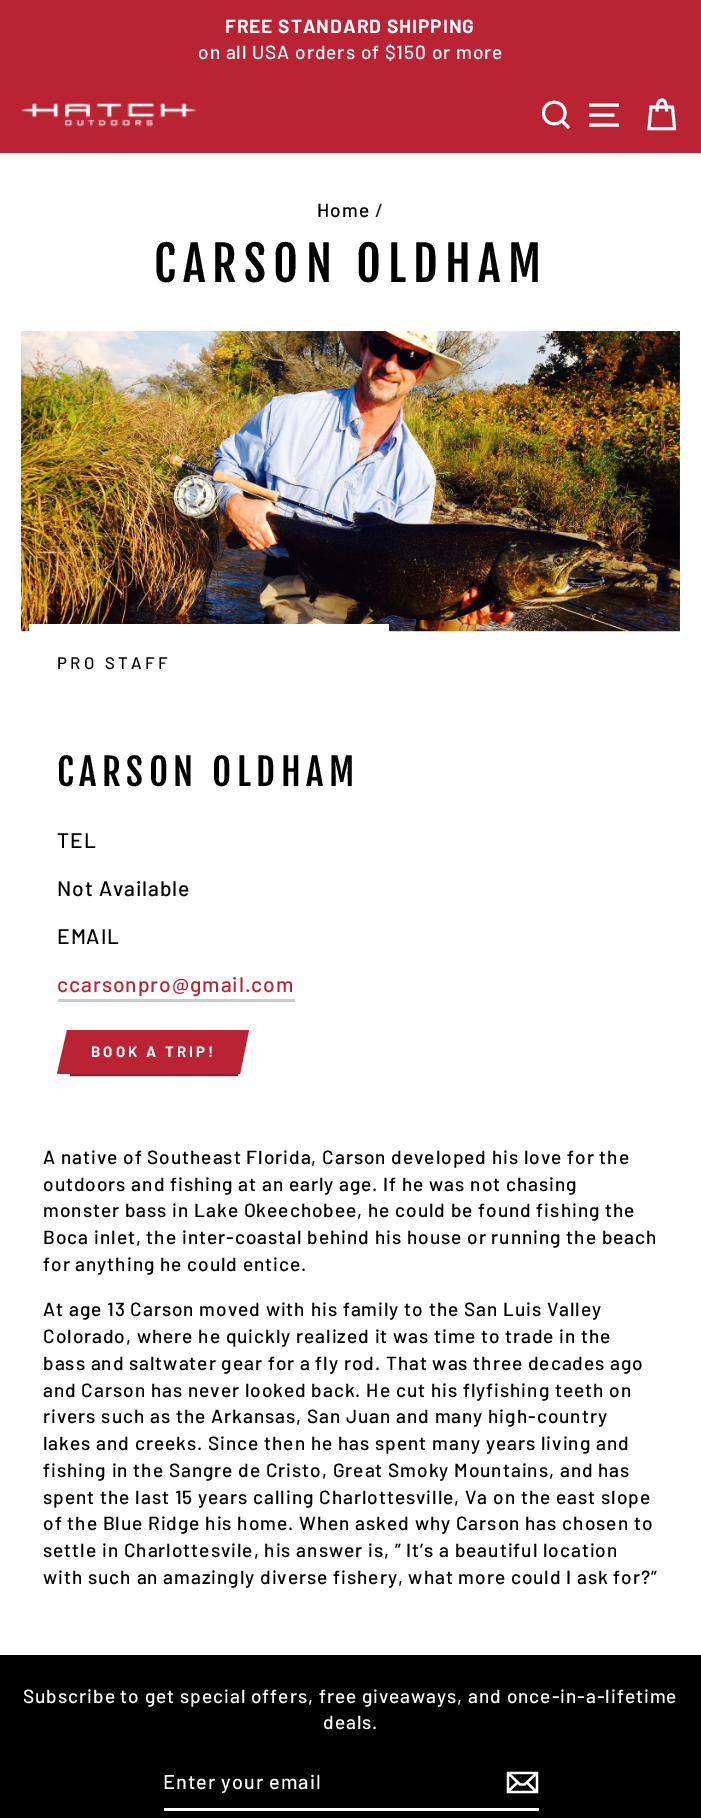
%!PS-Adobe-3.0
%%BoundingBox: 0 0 701 1818
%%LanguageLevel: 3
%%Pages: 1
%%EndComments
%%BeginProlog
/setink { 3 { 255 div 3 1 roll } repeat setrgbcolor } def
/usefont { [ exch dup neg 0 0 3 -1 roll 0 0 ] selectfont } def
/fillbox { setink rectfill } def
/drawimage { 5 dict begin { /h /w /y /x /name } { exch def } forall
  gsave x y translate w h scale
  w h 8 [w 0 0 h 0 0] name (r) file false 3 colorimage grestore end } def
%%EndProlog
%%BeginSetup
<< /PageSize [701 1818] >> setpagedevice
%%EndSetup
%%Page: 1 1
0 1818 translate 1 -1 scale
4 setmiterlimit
0 0 701 1818 255 255 255 fillbox
0 0 701 153 186 35 52 fillbox
/Barlow-Bold 19.1 usefont
255 255 255 setink
225 33 moveto 0.95 0 (FREE STANDARD SHIPPING) ashow
/Barlow-Medium 19.1 usefont
198 59 moveto 0.95 0 (on all USA orders of $150 or more) ashow
(assets/img1.rgb) 21 102 176 25 drawimage
2.9 setlinewidth
565 113 moveto 565 127.5 543.5 127.5 543.5 113 curveto 543.5 98.5 565 98.5 565 113 curveto closepath 569 128 moveto 562 121 lineto stroke
589 105 moveto 619 105 lineto 589 115 moveto 614.5 115 lineto 589 125 moveto 619 125 lineto stroke
657 111.5 moveto 657 102 659 100 662 100 curveto 664.5 100 666.5 102 666.5 111.5 curveto 651 107 moveto 672.5 107 lineto 674.5 128.5 lineto 649 128.5 lineto closepath stroke
0 0 0 setink
317 217 moveto 0.95 0 (Home) ashow
43 42 39 setink
375 217 moveto 0.95 0 (/) ashow
/FjallaOne-Regular 47.75 usefont
0 0 0 setink
154 282 moveto 7.2 0 (CARSON OLDHAM) ashow
(assets/img2.rgb) 21 331 659 301 drawimage
29 624 360 8 255 255 255 fillbox
70 1076 168 1 204 204 204 fillbox
/Barlow-Medium 16.75 usefont
0 0 0 setink
57 669 moveto 3.4 0 (PRO STAFF) ashow
/FjallaOne-Regular 36.75 usefont
57 786 moveto 5.5 0 (CARSON OLDHAM) ashow
/Barlow-Medium 21 usefont
57 848 moveto 0.95 0 (TEL) ashow
57 896 moveto 0.95 0 (Not Available) ashow
57 944 moveto 0.95 0 (EMAIL) ashow
58 999 237 3 204 204 204 fillbox
186 35 52 setink
57 992 moveto 0.95 0 (ccarsonpro@gmail.com) ashow
82 1030 142 44 186 35 52 fillbox
70 1074 168 2 149 28 42 fillbox
/Barlow-Bold 15 usefont
255 255 255 setink
91 1057 moveto 3 0 (BOOK A TRIP!) ashow
186 35 52 setink
67 1030 moveto 92 1030 lineto 82 1074 lineto 57 1074 lineto closepath fill
224 1030 moveto 249 1030 lineto 240 1074 lineto 215 1074 lineto closepath fill
/Barlow-Medium 19.1 usefont
0 0 0 setink
43 1164 moveto 0.95 0 (A native of Southeast Florida, Carson developed his love for the) ashow
43 1191 moveto 0.95 0 (outdoors and fishing at an early age. If he was not chasing) ashow
43 1217 moveto 0.95 0 (monster bass in Lake Okeechobee, he could be found fishing the) ashow
43 1244 moveto 0.95 0 (Boca inlet, the inter-coastal behind his house or running the beach) ashow
43 1271 moveto 0.95 0 (for anything he could entice.) ashow
43 1316 moveto 0.95 0 (At age 13 Carson moved with his family to the San Luis Valley) ashow
43 1343 moveto 0.95 0 (Colorado, where he quickly realized it was time to trade in the) ashow
43 1370 moveto 0.95 0 (bass and saltwater gear for a fly rod. That was three decades ago) ashow
43 1397 moveto 0.95 0 (and Carson has never looked back. He cut his flyfishing teeth on) ashow
43 1423 moveto 0.95 0 (rivers such as the Arkansas, San Juan and many high-country) ashow
43 1450 moveto 0.95 0 (lakes and creeks. Since then he has spent many years living and) ashow
43 1477 moveto 0.95 0 (fishing in the Sangre de Cristo, Great Smoky Mountains, and has) ashow
43 1504 moveto 0.95 0 (spent the last 15 years calling Charlottesville, Va on the east slope) ashow
43 1530 moveto 0.95 0 (of the Blue Ridge his home. When asked why Carson has chosen to) ashow
43 1557 moveto 0.95 0 (settle in Charlottesvile, his answer is, ” It’s a beautiful location) ashow
43 1584 moveto 0.95 0 (with such an amazingly diverse fishery, what more could I ask for?”) ashow
0 1655 701 163 0 0 0 fillbox
255 255 255 setink
23 1703 moveto 0.95 0 (Subscribe to get special offers, free giveaways, and once-in-a-lifetime) ashow
323 1729 moveto 0.95 0 (deals.) ashow
164 1808 375 3 255 255 255 fillbox
/Barlow-Medium 20 usefont
163 1789 moveto 1 0 (Enter your email) ashow
2.3 setlinewidth
537 1792 moveto 508 1792 lineto 508 1773 lineto 537 1773 lineto closepath 508 1773 moveto 520 1784.5 lineto 524.5 1784.5 lineto 537 1773 lineto 517.5 1782.5 moveto 508 1791.5 lineto 536.5 1792 moveto 527 1782.5 lineto stroke
showpage
%%EOF
